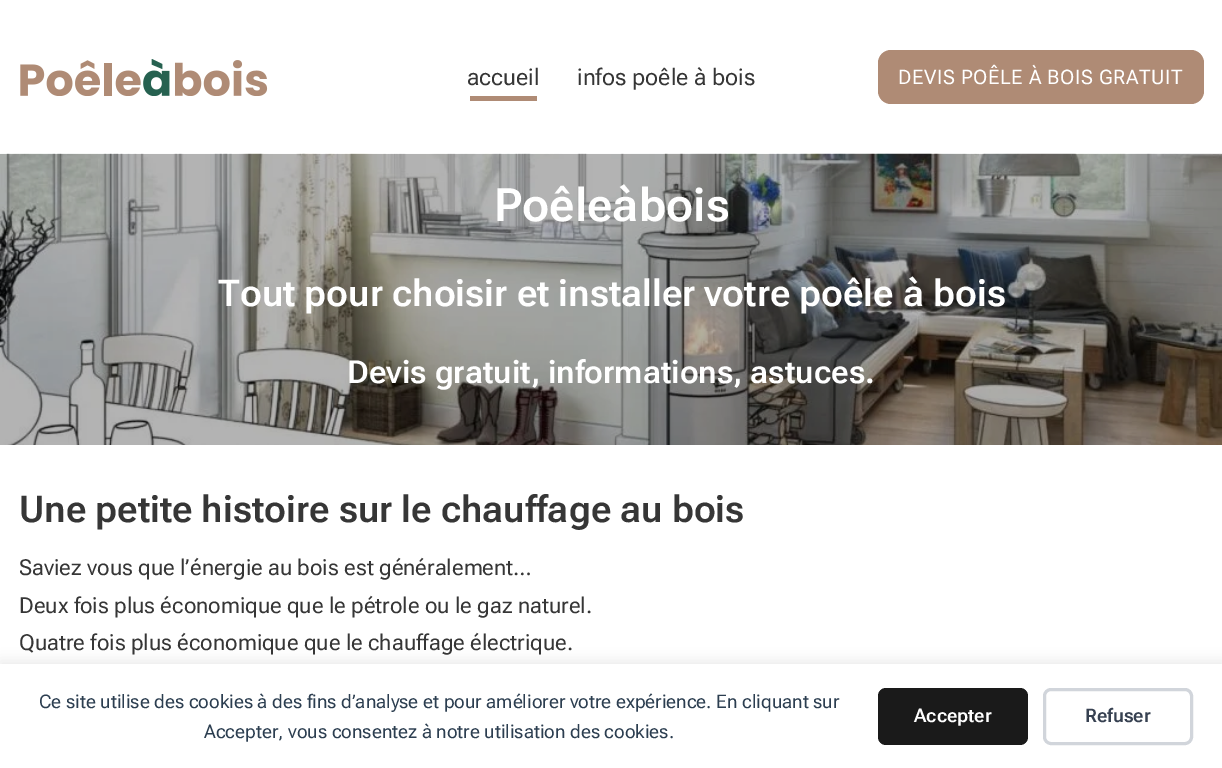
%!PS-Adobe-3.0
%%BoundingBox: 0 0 1222 768
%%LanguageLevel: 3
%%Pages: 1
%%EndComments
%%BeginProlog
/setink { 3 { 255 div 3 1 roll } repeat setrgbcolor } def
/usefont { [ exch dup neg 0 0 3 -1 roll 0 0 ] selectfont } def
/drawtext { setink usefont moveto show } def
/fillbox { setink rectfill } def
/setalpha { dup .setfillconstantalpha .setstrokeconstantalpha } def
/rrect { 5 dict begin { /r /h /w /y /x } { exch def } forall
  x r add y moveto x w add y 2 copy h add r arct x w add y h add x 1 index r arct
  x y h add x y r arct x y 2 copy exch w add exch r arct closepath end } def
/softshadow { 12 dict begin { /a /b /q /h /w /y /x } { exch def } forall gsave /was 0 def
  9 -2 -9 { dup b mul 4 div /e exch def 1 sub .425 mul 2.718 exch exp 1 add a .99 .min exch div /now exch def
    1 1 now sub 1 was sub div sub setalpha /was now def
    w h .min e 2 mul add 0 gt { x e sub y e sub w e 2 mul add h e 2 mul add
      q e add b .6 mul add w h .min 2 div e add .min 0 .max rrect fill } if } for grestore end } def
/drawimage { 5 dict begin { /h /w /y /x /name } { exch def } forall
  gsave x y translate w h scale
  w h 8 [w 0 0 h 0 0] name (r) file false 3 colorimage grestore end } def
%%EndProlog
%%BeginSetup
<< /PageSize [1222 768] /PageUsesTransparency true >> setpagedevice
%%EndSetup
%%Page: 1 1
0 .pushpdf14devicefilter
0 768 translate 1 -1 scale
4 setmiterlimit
0 0 1222 768 255 255 255 fillbox
(assets/img1.rgb) 20 59 248 37 drawimage
(accueil) 467 85 /RobotoFlex-Regular 23 54 54 54 drawtext
470 96 67 5 175 139 117 fillbox
(infos poêle à bois) 577 85 /RobotoFlex-Regular 23 54 54 54 drawtext
175 139 117 setink
878 50 326 54 13 rrect fill
/RobotoFlex-Regular 20 usefont
255 255 255 setink
898 84 moveto 0.6 0 (DEVIS POÊLE À BOIS GRATUIT) ashow
(assets/img2.rgb) 0 153 1222 292 drawimage
/RobotoFlex-SemiBold 46 usefont
494 221 moveto -11 0 32 (Poêle à bois) widthshow
(Tout pour choisir et installer votre poêle à bois) 218 306 /RobotoFlex-SemiBold 37.05 255 255 255 drawtext
(Devis gratuit, informations, astuces.) 347 383 /RobotoFlex-SemiBold 31.75 255 255 255 drawtext
(Une petite histoire sur le chauffage au bois) 19 522 /RobotoFlex-SemiBold 37.05 54 54 54 drawtext
(Saviez vous que l’énergie au bois est généralement…) 19 575 /RobotoFlex-Regular 22 54 54 54 drawtext
(Deux fois plus économique que le pétrole ou le gaz naturel.) 19 613 /RobotoFlex-Regular 22 54 54 54 drawtext
(Quatre fois plus économique que le chauffage électrique.) 19 650 /RobotoFlex-Regular 22 54 54 54 drawtext
0 0 0 setink
0 661 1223 105 0 6 0.08 softshadow
0 664 1222 104 255 255 255 fillbox
(Ce site utilise des cookies à des fins d’analyse et pour améliorer votre expérience. En cliquant sur) 39 708 /RobotoFlex-Regular 18.75 44 62 80 drawtext
(Accepter, vous consentez à notre utilisation des cookies.) 204 738 /RobotoFlex-Regular 18.75 44 62 80 drawtext
26 26 26 setink
878 688 150 57 8 rrect fill
(Accepter) 914 722 /RobotoFlex-SemiBold 18.75 255 255 255 drawtext
209 213 219 setink
3 setlinewidth
1044.5 689.5 147 54 6.5 rrect stroke
(Refuser) 1085 722 /RobotoFlex-SemiBold 18.75 55 65 81 drawtext
.poppdf14devicefilter showpage
%%EOF
